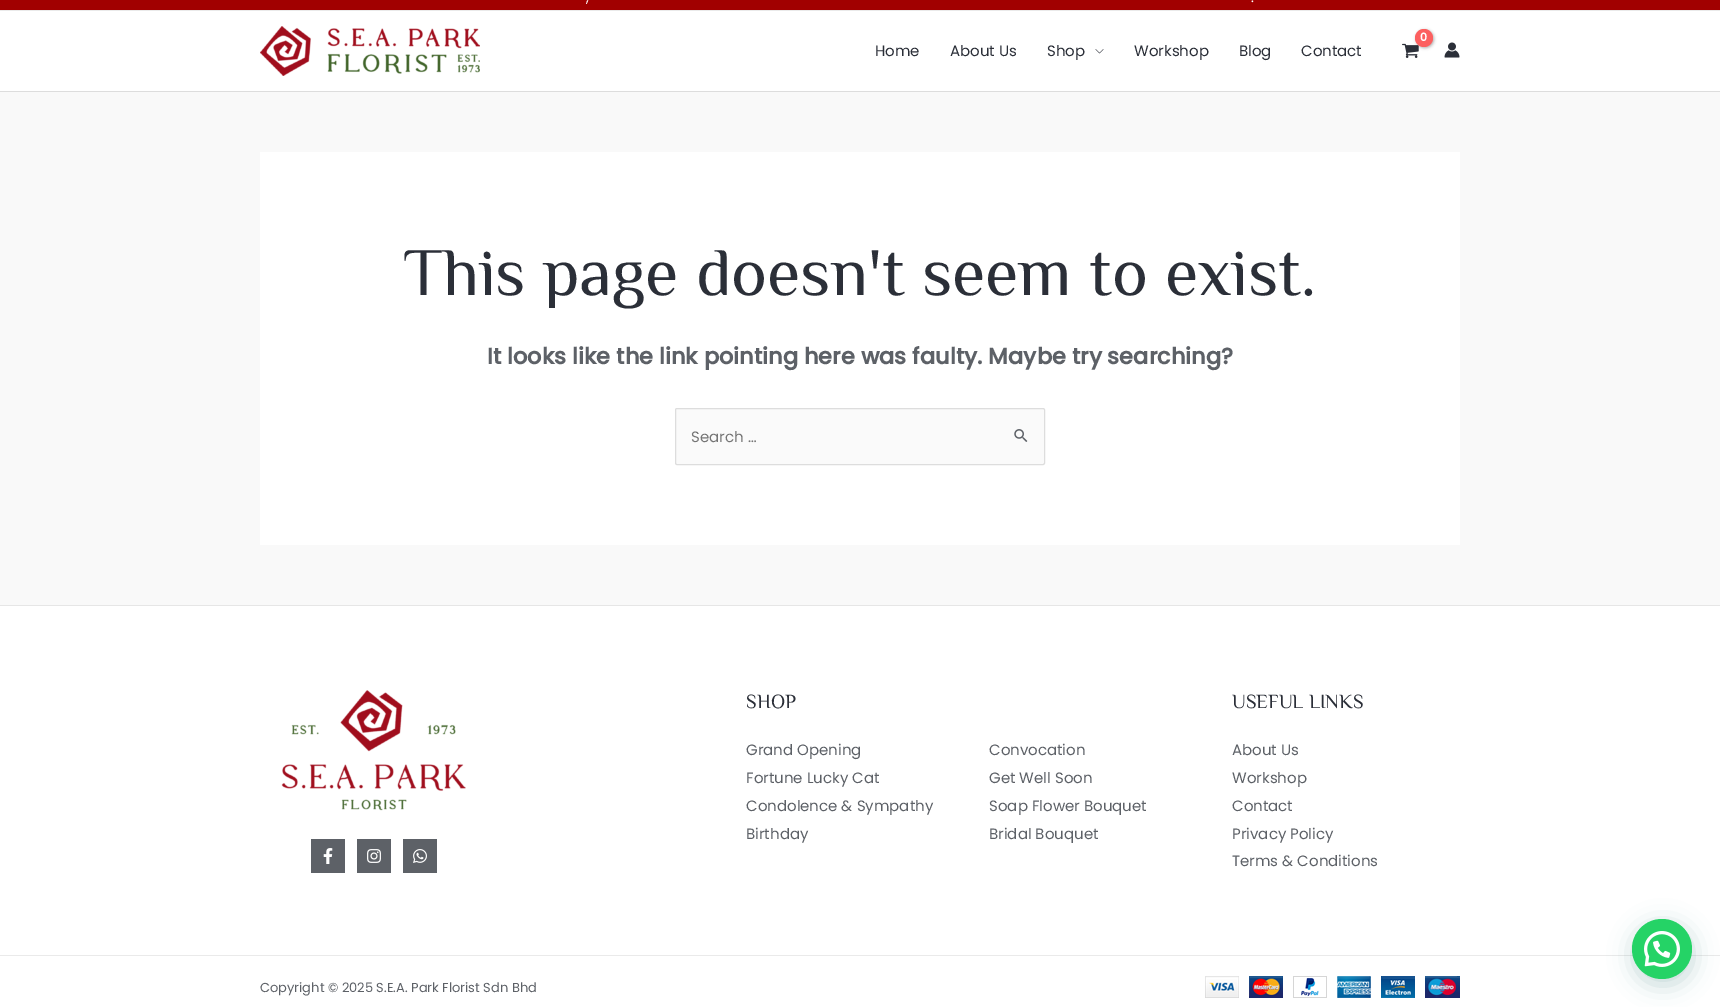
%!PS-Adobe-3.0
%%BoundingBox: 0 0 1720 1007
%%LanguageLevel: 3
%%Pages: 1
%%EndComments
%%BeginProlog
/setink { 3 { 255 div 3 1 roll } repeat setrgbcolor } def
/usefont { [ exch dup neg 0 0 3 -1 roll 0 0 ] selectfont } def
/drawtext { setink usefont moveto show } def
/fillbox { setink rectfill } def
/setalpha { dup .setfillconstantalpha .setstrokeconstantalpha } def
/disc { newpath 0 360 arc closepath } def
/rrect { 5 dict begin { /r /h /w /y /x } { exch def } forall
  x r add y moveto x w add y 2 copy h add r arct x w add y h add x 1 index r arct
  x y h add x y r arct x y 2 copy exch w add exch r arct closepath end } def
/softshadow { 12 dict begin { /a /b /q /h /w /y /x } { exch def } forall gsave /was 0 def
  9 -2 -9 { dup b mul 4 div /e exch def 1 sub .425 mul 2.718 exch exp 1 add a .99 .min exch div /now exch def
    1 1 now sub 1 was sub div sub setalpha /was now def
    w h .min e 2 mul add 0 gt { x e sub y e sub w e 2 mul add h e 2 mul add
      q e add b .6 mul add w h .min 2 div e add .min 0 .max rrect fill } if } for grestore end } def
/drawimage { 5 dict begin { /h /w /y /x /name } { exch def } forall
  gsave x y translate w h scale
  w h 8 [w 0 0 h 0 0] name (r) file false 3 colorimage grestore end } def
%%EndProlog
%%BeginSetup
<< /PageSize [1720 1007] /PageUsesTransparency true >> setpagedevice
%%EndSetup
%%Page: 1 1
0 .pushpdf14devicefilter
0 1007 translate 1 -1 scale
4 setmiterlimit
0 0 1720 1007 249 249 249 fillbox
0 0 1720 10 161 0 0 fillbox
0 10 1720 1 234 234 234 fillbox
(,) 586 2 /Poppins-Regular 14 255 255 255 drawtext
(.) 1251 2 /Poppins-Regular 14 255 255 255 drawtext
0 11 1720 80 255 255 255 fillbox
0 91 1720 1 221 221 221 fillbox
(assets/img1.rgb) 260 26 220 50 drawimage
(assets/img2.rgb) 1402 43 17 15 drawimage
0 0 0 setink
1416 30 18 18 9 1.5 0.3 softshadow
252 95 95 setink
1424 38 9 disc fill
(0) 1420 41 /Poppins-Bold 11 255 255 255 drawtext
(Home) 875 56 /Poppins-Regular 15 43 47 56 drawtext
(About Us) 950 56 /Poppins-Regular 15 43 47 56 drawtext
(Shop) 1047 56 /Poppins-Regular 15 43 47 56 drawtext
(assets/img3.rgb) 1095 49 9 5 drawimage
(Workshop) 1134 56 /Poppins-Regular 15 43 47 56 drawtext
(Blog) 1239 56 /Poppins-Regular 15 43 47 56 drawtext
(Contact) 1301 56 /Poppins-Regular 15 43 47 56 drawtext
(assets/img4.rgb) 1444 42 16 16 drawimage
260 152 1200 393 255 255 255 fillbox
(This page doesn't seem to exist.) 403 295 /Philosopher-Regular 68 43 47 56 drawtext
(It looks like the link pointing here was faulty. Maybe try searching?) 487 364 /Poppins-Bold 22.5 93 97 103 drawtext
250 250 250 setink
675.5 408.5 369 56 1.5 rrect gsave fill grestore
221 221 221 setink
stroke
(Search …) 691 442 /Poppins-Regular 15 117 117 117 drawtext
(assets/img5.rgb) 1014 429 14 13 drawimage
0 606 1720 401 255 255 255 fillbox
0 605 1720 1 230 230 230 fillbox
(assets/img6.rgb) 281 690 185 121 drawimage
311 839 34 34 93 97 103 fillbox
(assets/img7.rgb) 323 848 10 16 drawimage
357 839 34 34 93 97 103 fillbox
(assets/img8.rgb) 367 849 14 14 drawimage
403 839 34 34 93 97 103 fillbox
(assets/img9.rgb) 413 849 14 14 drawimage
(SHOP) 746 708 /Philosopher-Regular 20 43 47 56 drawtext
(Grand Opening) 746 755 /Poppins-Regular 15 93 97 103 drawtext
(Fortune Lucky Cat) 746 783 /Poppins-Regular 15 93 97 103 drawtext
(Condolence & Sympathy) 746 811 /Poppins-Regular 15 93 97 103 drawtext
(Birthday) 746 839 /Poppins-Regular 15 93 97 103 drawtext
(Convocation) 989 755 /Poppins-Regular 15 93 97 103 drawtext
(Get Well Soon) 989 783 /Poppins-Regular 15 93 97 103 drawtext
(Soap Flower Bouquet) 989 811 /Poppins-Regular 15 93 97 103 drawtext
(Bridal Bouquet) 989 839 /Poppins-Regular 15 93 97 103 drawtext
(USEFUL LINKS) 1232 708 /Philosopher-Regular 20 43 47 56 drawtext
(About Us) 1232 755 /Poppins-Regular 15 93 97 103 drawtext
(Workshop) 1232 783 /Poppins-Regular 15 93 97 103 drawtext
(Contact) 1232 811 /Poppins-Regular 15 93 97 103 drawtext
(Privacy Policy) 1232 839 /Poppins-Regular 15 93 97 103 drawtext
(Terms & Conditions) 1232 866 /Poppins-Regular 15 93 97 103 drawtext
0 955 1720 1 234 234 234 fillbox
(Copyright © 2025 S.E.A. Park Florist Sdn Bhd) 260 992 /Poppins-Regular 13 93 97 103 drawtext
(assets/img10.rgb) 1205 976 255 22 drawimage
7 94 84 setink
1633 925 60 60 30 12 0.24 softshadow
37 211 102 setink
1662 949 30 disc fill
(assets/img11.rgb) 1644 931 36 36 drawimage
.poppdf14devicefilter showpage
%%EOF
